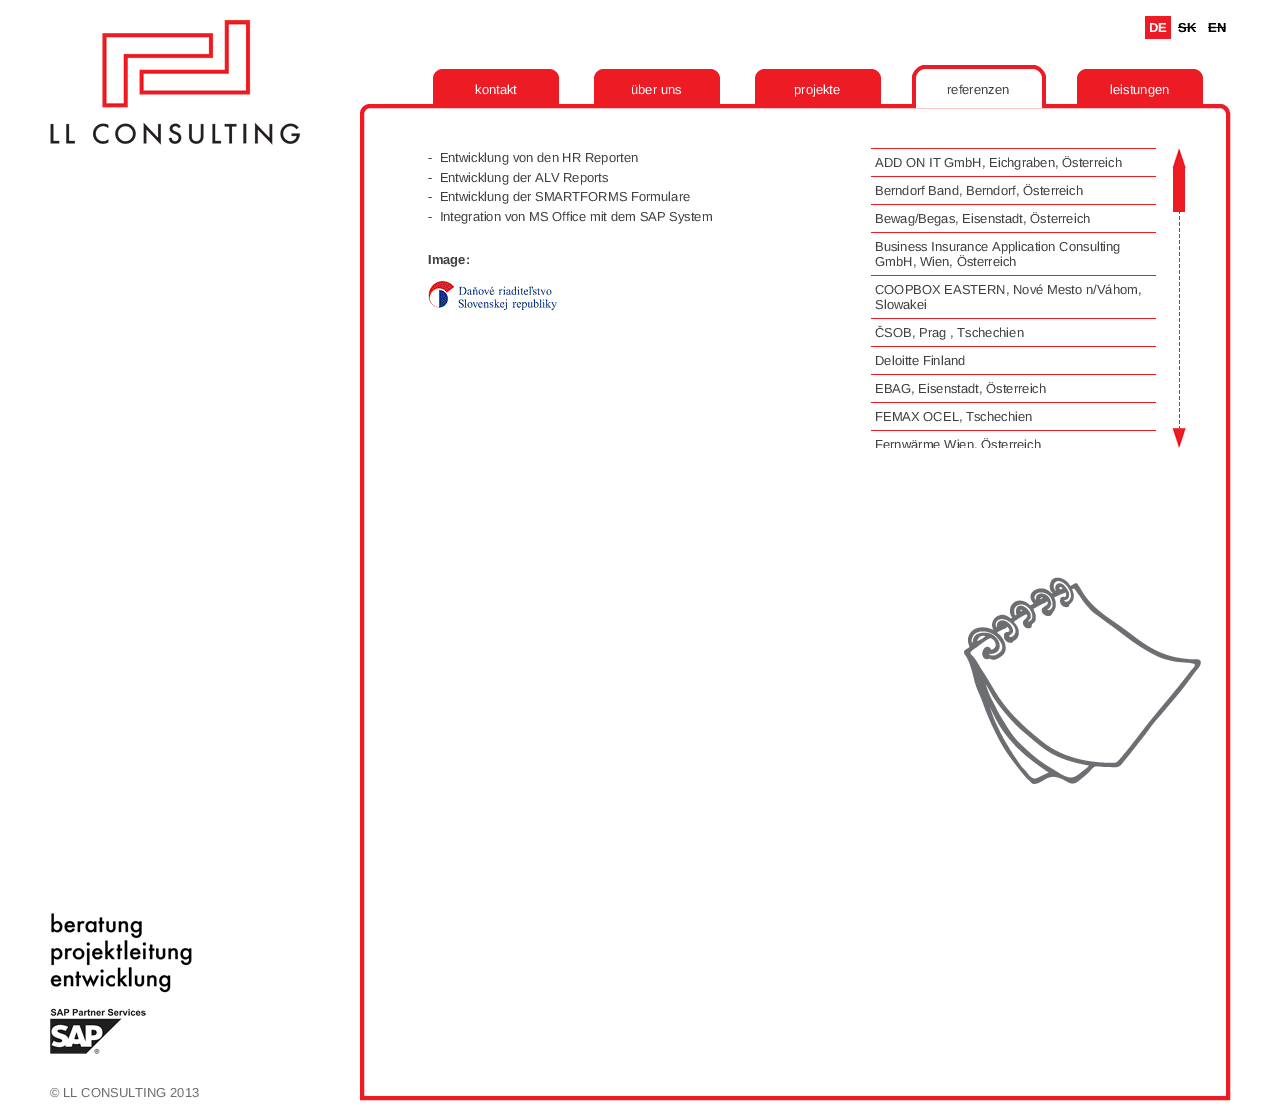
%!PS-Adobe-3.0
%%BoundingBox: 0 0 1280 1120
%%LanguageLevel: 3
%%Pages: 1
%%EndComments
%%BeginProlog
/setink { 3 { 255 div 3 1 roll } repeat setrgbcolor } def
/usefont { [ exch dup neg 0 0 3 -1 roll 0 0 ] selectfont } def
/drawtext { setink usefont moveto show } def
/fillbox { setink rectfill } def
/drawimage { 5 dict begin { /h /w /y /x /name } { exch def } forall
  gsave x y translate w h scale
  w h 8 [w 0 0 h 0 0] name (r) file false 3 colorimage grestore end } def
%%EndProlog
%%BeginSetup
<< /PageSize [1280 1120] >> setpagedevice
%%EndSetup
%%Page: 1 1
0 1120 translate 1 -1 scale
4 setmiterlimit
0 0 1280 1120 255 255 255 fillbox
1145 16 26 23 237 28 36 fillbox
(DE) 1149 32 /LiberationSans-Bold 13 255 255 255 drawtext
(SK) 1178 32 /LiberationSans-Bold 13 0 0 0 drawtext
1178 27 18 1 0 0 0 fillbox
(EN) 1208 32 /LiberationSans-Bold 13 0 0 0 drawtext
1208 27 18 1 0 0 0 fillbox
(assets/img1.rgb) 433 69 126 35 drawimage
(kontakt) 475 94 /LiberationSans-Regular 13 255 255 255 drawtext
(assets/img1.rgb) 594 69 126 35 drawimage
(über uns) 631 94 /LiberationSans-Regular 13 255 255 255 drawtext
(assets/img1.rgb) 755 69 126 35 drawimage
(projekte) 794 94 /LiberationSans-Regular 13 255 255 255 drawtext
(assets/img3.rgb) 964 577 237 207 drawimage
237 28 36 setink
4 setlinewidth
370 106 moveto 1220 106 lineto 1224.5 106 1228 109.5 1228 114 curveto 1228 1098 lineto 362 1098 lineto 362 114 lineto 362 109.5 365.5 106 370 106 curveto closepath stroke
(assets/img2.rgb) 912 65 134 43 drawimage
(referenzen) 947 94 /LiberationSans-Regular 13 65 64 66 drawtext
(assets/img1.rgb) 1077 69 126 35 drawimage
(leistungen) 1110 94 /LiberationSans-Regular 13 255 255 255 drawtext
(-  Entwicklung von den HR Reporten) 428 162 /LiberationSans-Regular 13 65 64 66 drawtext
(-  Entwicklung der ALV Reports) 428 182 /LiberationSans-Regular 13 65 64 66 drawtext
(-  Entwicklung der SMARTFORMS Formulare) 428 201 /LiberationSans-Regular 13 65 64 66 drawtext
(-  Integration von MS Office mit dem SAP System) 428 221 /LiberationSans-Regular 13 65 64 66 drawtext
(Image:) 428 264 /LiberationSans-Bold 13 65 64 66 drawtext
(assets/img4.rgb) 428 281 129 29 drawimage
871 148 285 1 237 28 36 fillbox
871 176 285 1 237 28 36 fillbox
(ADD ON IT GmbH, Eichgraben, Österreich) 875 167 /LiberationSans-Regular 13 65 64 66 drawtext
871 204 285 1 237 28 36 fillbox
(Berndorf Band, Berndorf, Österreich) 875 195 /LiberationSans-Regular 13 65 64 66 drawtext
871 232 285 1 237 28 36 fillbox
(Bewag/Begas, Eisenstadt, Österreich) 875 223 /LiberationSans-Regular 13 65 64 66 drawtext
871 275 285 1 237 28 36 fillbox
(Business Insurance Application Consulting) 875 251 /LiberationSans-Regular 13 65 64 66 drawtext
(GmbH, Wien, Österreich) 875 266 /LiberationSans-Regular 13 65 64 66 drawtext
871 318 285 1 237 28 36 fillbox
(COOPBOX EASTERN, Nové Mesto n/Váhom,) 875 294 /LiberationSans-Regular 13 65 64 66 drawtext
(Slowakei) 875 309 /LiberationSans-Regular 13 65 64 66 drawtext
871 346 285 1 237 28 36 fillbox
(ČSOB, Prag , Tschechien) 875 337 /LiberationSans-Regular 13 65 64 66 drawtext
871 374 285 1 237 28 36 fillbox
(Deloitte Finland) 875 365 /LiberationSans-Regular 13 65 64 66 drawtext
871 402 285 1 237 28 36 fillbox
(EBAG, Eisenstadt, Österreich) 875 393 /LiberationSans-Regular 13 65 64 66 drawtext
871 430 285 1 237 28 36 fillbox
(FEMAX OCEL, Tschechien) 875 421 /LiberationSans-Regular 13 65 64 66 drawtext
gsave
871 148 285 300 rectclip
(Fernwärme Wien, Österreich) 875 449 /LiberationSans-Regular 13 65 64 66 drawtext
grestore
(assets/img5.rgb) 1172 148 14 20 drawimage
1173 168 12 44 237 28 36 fillbox
(assets/img6.rgb) 1179 212 1 216 drawimage
(assets/img7.rgb) 1172 428 14 20 drawimage
(assets/img8.rgb) 50 20 250 125 drawimage
(assets/img9.rgb) 50 913 142 141 drawimage
(© LL CONSULTING 2013) 50 1097 /LiberationSans-Regular 13 109 110 113 drawtext
showpage
%%EOF
